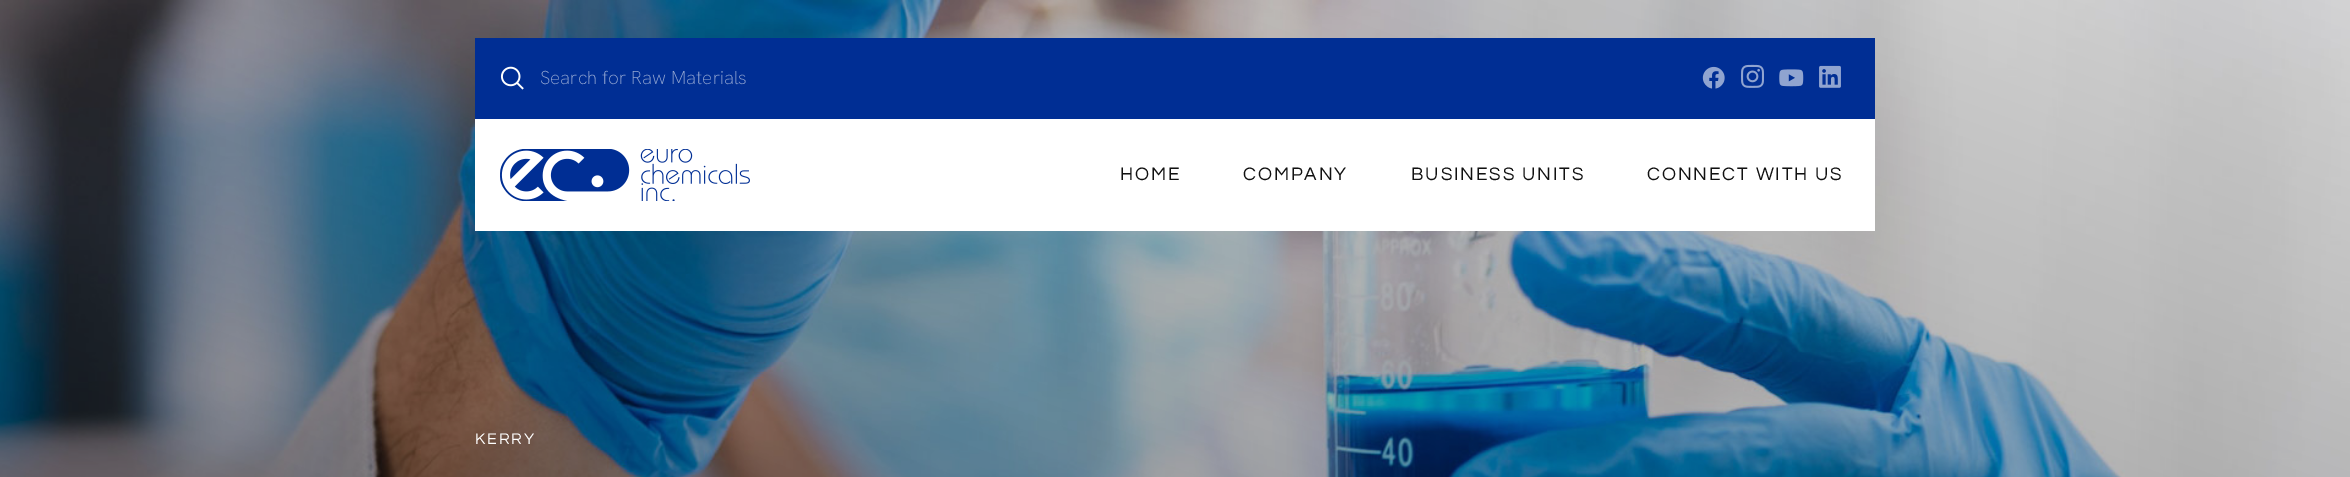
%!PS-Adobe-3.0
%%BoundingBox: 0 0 2350 477
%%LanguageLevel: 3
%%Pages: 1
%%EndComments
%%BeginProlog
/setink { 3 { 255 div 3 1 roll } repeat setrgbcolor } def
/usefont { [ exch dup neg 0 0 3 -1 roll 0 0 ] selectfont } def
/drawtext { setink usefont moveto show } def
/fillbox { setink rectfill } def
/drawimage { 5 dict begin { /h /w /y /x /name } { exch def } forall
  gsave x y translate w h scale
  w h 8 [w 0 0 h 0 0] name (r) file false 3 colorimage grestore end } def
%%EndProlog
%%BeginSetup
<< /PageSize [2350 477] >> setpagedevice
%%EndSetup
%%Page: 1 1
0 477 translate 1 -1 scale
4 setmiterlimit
0 0 2350 477 255 255 255 fillbox
(assets/img7.rgb) 0 0 2350 477 drawimage
475 38 1400 81 0 46 148 fillbox
(assets/img1.rgb) 500 66 24 24 drawimage
(Search for Raw Materials) 540 84 /HankenGrotesk-ExtraLight 18.75 153 171 212 drawtext
(assets/img2.rgb) 1702 66 23 23 drawimage
(assets/img3.rgb) 1741 64 23 24 drawimage
(assets/img4.rgb) 1779 69 25 18 drawimage
(assets/img5.rgb) 1819 65 22 23 drawimage
475 119 1400 112 255 255 255 fillbox
(assets/img6.rgb) 500 149 250 52 drawimage
/Questrial-Regular 18.75 usefont
17 17 17 setink
1120 180 moveto 1.9 0 (HOME) ashow
1243 180 moveto 1.9 0 (COMPANY) ashow
1411 180 moveto 1.9 0 (BUSINESS UNITS) ashow
1647 180 moveto 1.9 0 (CONNECT WITH US) ashow
/Questrial-Regular 16 usefont
255 255 255 setink
475 444 moveto 1.9 0 (KERRY) ashow
showpage
%%EOF
